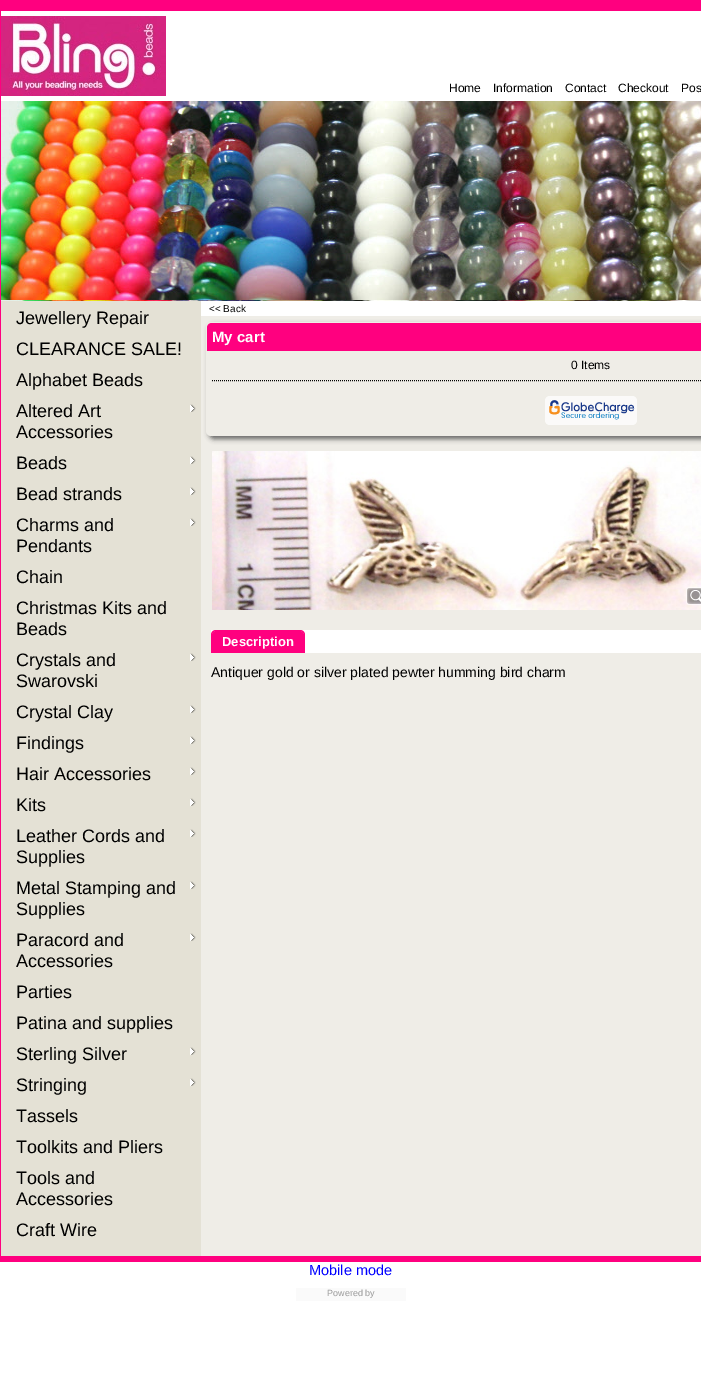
%!PS-Adobe-3.0
%%BoundingBox: 0 0 701 1378
%%LanguageLevel: 3
%%Pages: 1
%%EndComments
%%BeginProlog
/setink { 3 { 255 div 3 1 roll } repeat setrgbcolor } def
/usefont { [ exch dup neg 0 0 3 -1 roll 0 0 ] selectfont } def
/drawtext { setink usefont moveto show } def
/fillbox { setink rectfill } def
/setalpha { dup .setfillconstantalpha .setstrokeconstantalpha } def
/rrect { 5 dict begin { /r /h /w /y /x } { exch def } forall
  x r add y moveto x w add y 2 copy h add r arct x w add y h add x 1 index r arct
  x y h add x y r arct x y 2 copy exch w add exch r arct closepath end } def
/softshadow { 12 dict begin { /a /b /q /h /w /y /x } { exch def } forall gsave /was 0 def
  9 -2 -9 { dup b mul 4 div /e exch def 1 sub .425 mul 2.718 exch exp 1 add a .99 .min exch div /now exch def
    1 1 now sub 1 was sub div sub setalpha /was now def
    w h .min e 2 mul add 0 gt { x e sub y e sub w e 2 mul add h e 2 mul add
      q e add b .6 mul add w h .min 2 div e add .min 0 .max rrect fill } if } for grestore end } def
/drawimage { 5 dict begin { /h /w /y /x /name } { exch def } forall
  gsave x y translate w h scale
  w h 8 [w 0 0 h 0 0] name (r) file false 3 colorimage grestore end } def
%%EndProlog
%%BeginSetup
<< /PageSize [701 1378] /PageUsesTransparency true >> setpagedevice
%%EndSetup
%%Page: 1 1
0 .pushpdf14devicefilter
0 1378 translate 1 -1 scale
4 setmiterlimit
0 0 701 1378 255 255 255 fillbox
0 0 701 1262 255 0 127 fillbox
1 11 700 90 255 255 255 fillbox
(assets/img1.rgb) 1 16 165 80 drawimage
(Home) 449 92 /LiberationSans-Regular 12 0 0 0 drawtext
(Information) 493 92 /LiberationSans-Regular 12 0 0 0 drawtext
(Contact) 565 92 /LiberationSans-Regular 12 0 0 0 drawtext
(Checkout) 618 92 /LiberationSans-Regular 12 0 0 0 drawtext
(Pos) 681 92 /LiberationSans-Regular 12 0 0 0 drawtext
(assets/img2.rgb) 1 101 700 200 drawimage
1 301 200 955 228 225 213 fillbox
(Jewellery Repair) 16 324 /LiberationSans-Regular 18 0 0 0 drawtext
(CLEARANCE SALE!) 16 355 /LiberationSans-Regular 18 0 0 0 drawtext
(Alphabet Beads) 16 386 /LiberationSans-Regular 18 0 0 0 drawtext
(Altered Art) 16 417 /LiberationSans-Regular 18 0 0 0 drawtext
(assets/img3.rgb) 190 404 6 8 drawimage
(Accessories) 16 438 /LiberationSans-Regular 18 0 0 0 drawtext
(Beads) 16 469 /LiberationSans-Regular 18 0 0 0 drawtext
(assets/img3.rgb) 190 456 6 8 drawimage
(Bead strands) 16 500 /LiberationSans-Regular 18 0 0 0 drawtext
(assets/img3.rgb) 190 487 6 8 drawimage
(Charms and) 16 531 /LiberationSans-Regular 18 0 0 0 drawtext
(assets/img3.rgb) 190 518 6 8 drawimage
(Pendants) 16 552 /LiberationSans-Regular 18 0 0 0 drawtext
(Chain) 16 583 /LiberationSans-Regular 18 0 0 0 drawtext
(Christmas Kits and) 16 614 /LiberationSans-Regular 18 0 0 0 drawtext
(Beads) 16 635 /LiberationSans-Regular 18 0 0 0 drawtext
(Crystals and) 16 666 /LiberationSans-Regular 18 0 0 0 drawtext
(assets/img3.rgb) 190 653 6 8 drawimage
(Swarovski) 16 687 /LiberationSans-Regular 18 0 0 0 drawtext
(Crystal Clay) 16 718 /LiberationSans-Regular 18 0 0 0 drawtext
(assets/img3.rgb) 190 705 6 8 drawimage
(Findings) 16 749 /LiberationSans-Regular 18 0 0 0 drawtext
(assets/img3.rgb) 190 736 6 8 drawimage
(Hair Accessories) 16 780 /LiberationSans-Regular 18 0 0 0 drawtext
(assets/img3.rgb) 190 767 6 8 drawimage
(Kits) 16 811 /LiberationSans-Regular 18 0 0 0 drawtext
(assets/img3.rgb) 190 798 6 8 drawimage
(Leather Cords and) 16 842 /LiberationSans-Regular 18 0 0 0 drawtext
(assets/img3.rgb) 190 829 6 8 drawimage
(Supplies) 16 863 /LiberationSans-Regular 18 0 0 0 drawtext
(Metal Stamping and) 16 894 /LiberationSans-Regular 18 0 0 0 drawtext
(assets/img3.rgb) 190 881 6 8 drawimage
(Supplies) 16 915 /LiberationSans-Regular 18 0 0 0 drawtext
(Paracord and) 16 946 /LiberationSans-Regular 18 0 0 0 drawtext
(assets/img3.rgb) 190 933 6 8 drawimage
(Accessories) 16 967 /LiberationSans-Regular 18 0 0 0 drawtext
(Parties) 16 998 /LiberationSans-Regular 18 0 0 0 drawtext
(Patina and supplies) 16 1029 /LiberationSans-Regular 18 0 0 0 drawtext
(Sterling Silver) 16 1060 /LiberationSans-Regular 18 0 0 0 drawtext
(assets/img3.rgb) 190 1047 6 8 drawimage
(Stringing) 16 1091 /LiberationSans-Regular 18 0 0 0 drawtext
(assets/img3.rgb) 190 1078 6 8 drawimage
(Tassels) 16 1122 /LiberationSans-Regular 18 0 0 0 drawtext
(Toolkits and Pliers) 16 1153 /LiberationSans-Regular 18 0 0 0 drawtext
(Tools and) 16 1184 /LiberationSans-Regular 18 0 0 0 drawtext
(Accessories) 16 1205 /LiberationSans-Regular 18 0 0 0 drawtext
(Craft Wire) 16 1236 /LiberationSans-Regular 18 0 0 0 drawtext
201 316 500 940 239 237 231 fillbox
201 301 500 15 255 255 255 fillbox
(<< Back) 209 312 /LiberationSans-Regular 10 0 0 0 drawtext
102 102 102 setink
209 325 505 114 5 2.5 1 softshadow
239 237 231 setink
206 322 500 114 5 rrect fill
255 0 127 setink
212 323 moveto 701 323 lineto 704 323 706 325 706 328 curveto 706 351 lineto 207 351 lineto 207 328 lineto 207 325 209 323 212 323 curveto closepath fill
(My cart) 212 342 /LiberationSans-Bold 15 255 255 255 drawtext
0 0 0 setink
[1 1] 0 setdash
212 380.5 moveto 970 380.5 lineto stroke
(0 Items) 571 369 /LiberationSans-Regular 12 0 0 0 drawtext
(assets/img4.rgb) 545 396 92 29 drawimage
(assets/img5.rgb) 212 451 489 159 drawimage
(assets/img6.rgb) 686 587 15 18 drawimage
211 630 490 23 255 255 255 fillbox
255 0 127 setink
216 631 moveto 300 631 lineto 302 631 304 633 304 635 curveto 304 653 lineto 212 653 lineto 212 635 lineto 212 633 214 631 216 631 curveto closepath fill
216 630 moveto 300 630 lineto 303 630 305 632 305 635 curveto 305 653 lineto 211 653 lineto 211 635 lineto 211 632 213 630 216 630 curveto closepath 216 631 moveto 300 631 lineto 302 631 304 633 304 635 curveto 304 653 lineto 212 653 lineto 212 635 lineto 212 633 214 631 216 631 curveto closepath eofill
(Description) 222 646 /LiberationSans-Bold 13 255 255 255 drawtext
(Antiquer gold or silver plated pewter humming bird charm) 211 677 /LiberationSans-Regular 14 0 0 0 drawtext
(Mobile mode) 309 1275 /LiberationSans-Regular 14.5 0 0 255 drawtext
296 1288 110 13 250 250 250 fillbox
(Powered by) 327 1296 /LiberationSans-Regular 9 153 153 153 drawtext
.poppdf14devicefilter showpage
%%EOF
